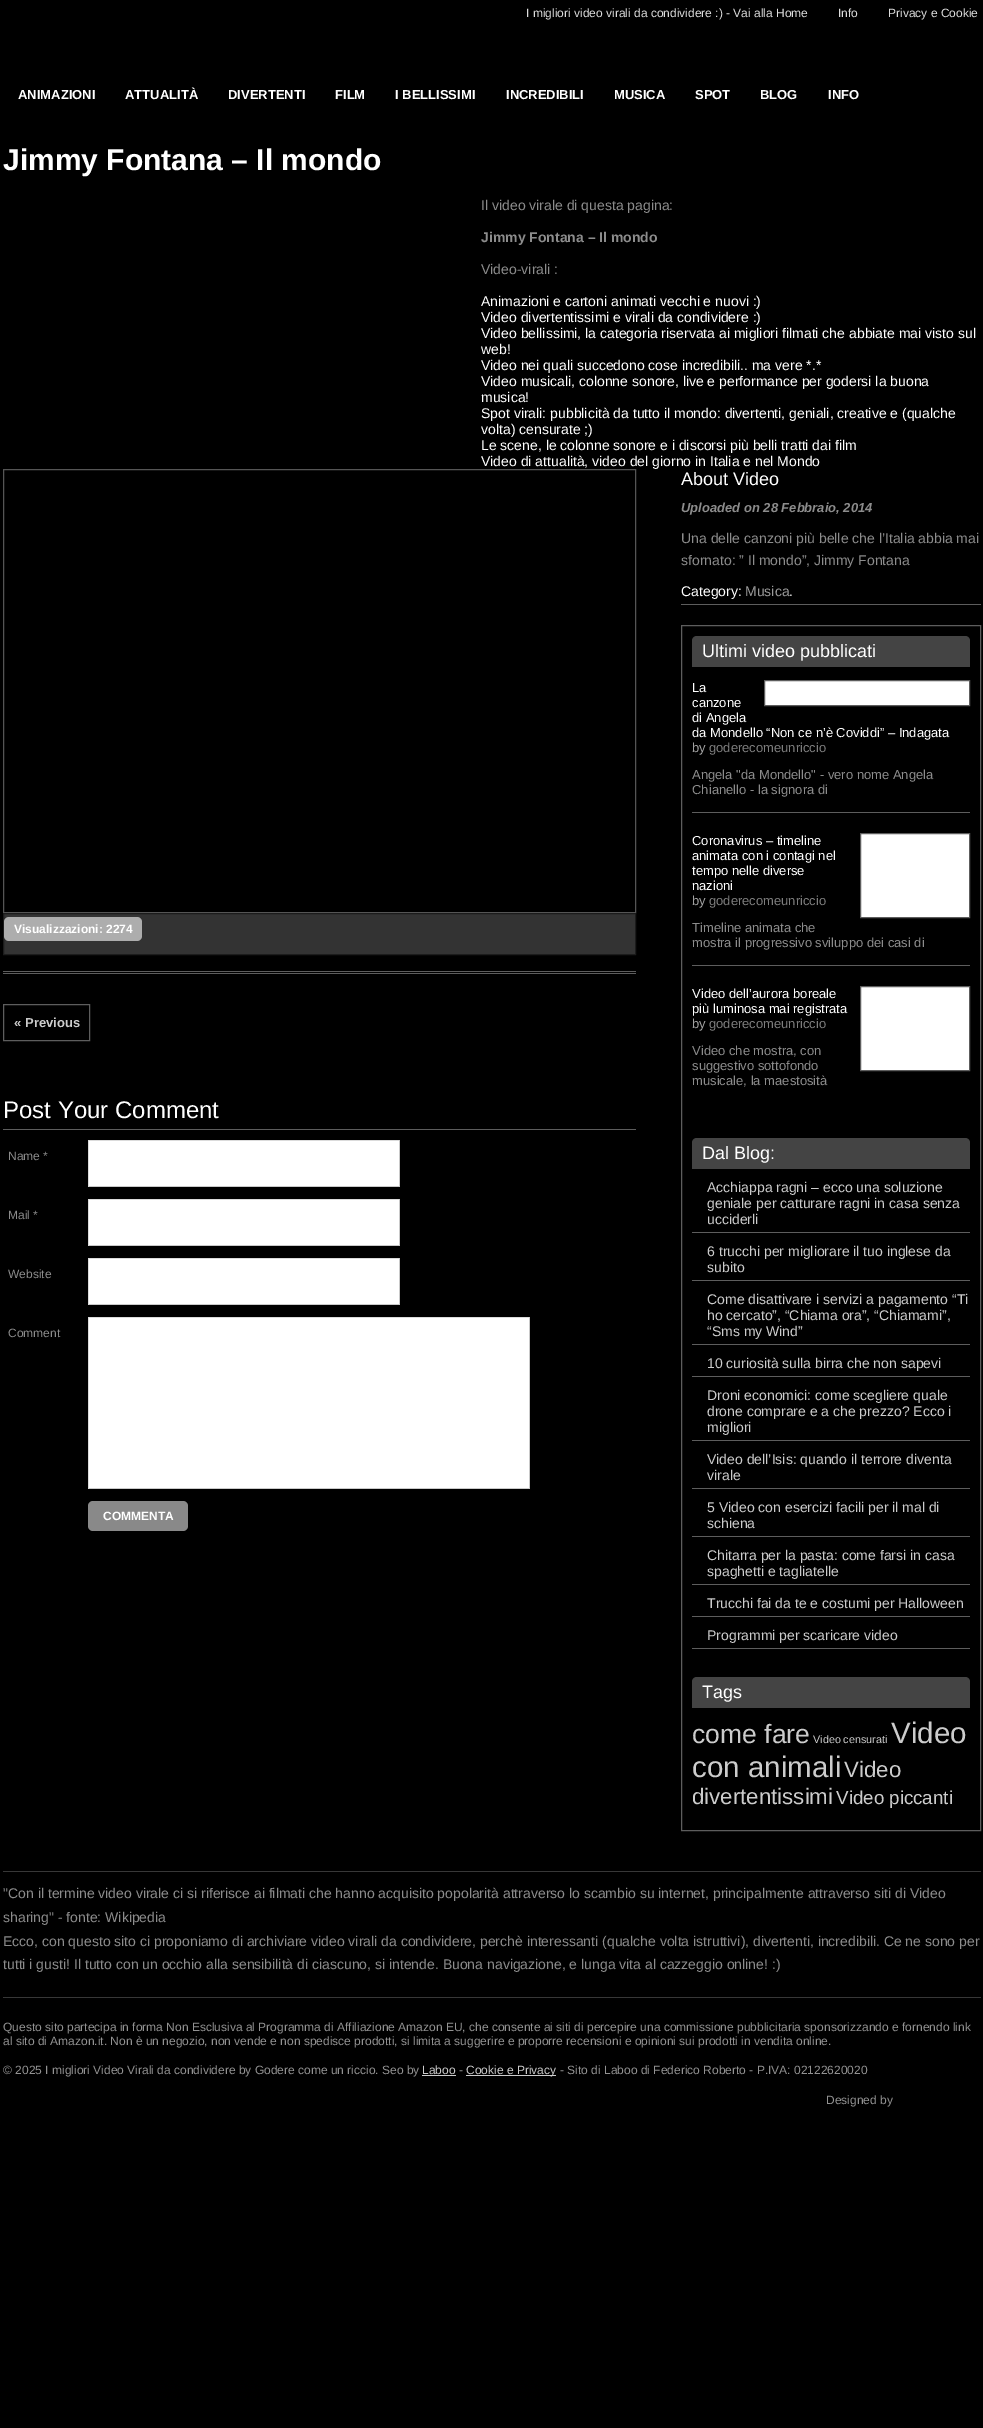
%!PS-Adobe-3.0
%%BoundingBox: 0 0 983 2428
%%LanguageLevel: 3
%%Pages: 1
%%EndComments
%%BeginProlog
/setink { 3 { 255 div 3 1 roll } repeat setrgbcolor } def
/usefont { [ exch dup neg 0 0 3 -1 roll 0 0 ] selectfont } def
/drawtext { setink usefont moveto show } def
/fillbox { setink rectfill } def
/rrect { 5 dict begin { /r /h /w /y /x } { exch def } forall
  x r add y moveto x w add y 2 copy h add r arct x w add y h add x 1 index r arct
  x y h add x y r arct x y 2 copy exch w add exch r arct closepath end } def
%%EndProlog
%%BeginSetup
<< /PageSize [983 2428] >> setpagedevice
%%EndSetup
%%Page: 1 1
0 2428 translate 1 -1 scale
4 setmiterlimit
0 0 983 2428 0 0 0 fillbox
(I migliori video virali da condividere :\) - Vai alla Home) 526 17 /LiberationSans-Regular 12 221 221 221 drawtext
(Info) 838 17 /LiberationSans-Regular 12 221 221 221 drawtext
(Privacy e Cookie) 888 17 /LiberationSans-Regular 12 221 221 221 drawtext
(ANIMAZIONI) 18 99 /LiberationSans-Bold 13 255 255 255 drawtext
(ATTUALITÀ) 125 99 /LiberationSans-Bold 13 255 255 255 drawtext
(DIVERTENTI) 228 99 /LiberationSans-Bold 13 255 255 255 drawtext
(FILM) 335 99 /LiberationSans-Bold 13 255 255 255 drawtext
(I BELLISSIMI) 395 99 /LiberationSans-Bold 13 255 255 255 drawtext
(INCREDIBILI) 506 99 /LiberationSans-Bold 13 255 255 255 drawtext
(MUSICA) 614 99 /LiberationSans-Bold 13 255 255 255 drawtext
(SPOT) 695 99 /LiberationSans-Bold 13 255 255 255 drawtext
(BLOG) 760 99 /LiberationSans-Bold 13 255 255 255 drawtext
(INFO) 828 99 /LiberationSans-Bold 13 255 255 255 drawtext
(Jimmy Fontana – Il mondo) 3 170 /LiberationSans-Bold 30 255 255 255 drawtext
(Il video virale di questa pagina:) 481 210 /LiberationSans-Regular 14 140 140 140 drawtext
(Jimmy Fontana – Il mondo) 481 242 /LiberationSans-Bold 14 140 140 140 drawtext
(Video-virali :) 481 274 /LiberationSans-Regular 14 140 140 140 drawtext
(Animazioni e cartoni animati vecchi e nuovi :\)) 481 306 /LiberationSans-Regular 14 255 255 255 drawtext
(Video divertentissimi e virali da condividere :\)) 481 322 /LiberationSans-Regular 14 255 255 255 drawtext
(Video bellissimi, la categoria riservata ai migliori filmati che abbiate mai visto sul) 481 338 /LiberationSans-Regular 14 255 255 255 drawtext
(web!) 481 354 /LiberationSans-Regular 14 255 255 255 drawtext
(Video nei quali succedono cose incredibili.. ma vere *.*) 481 370 /LiberationSans-Regular 14 255 255 255 drawtext
(Video musicali, colonne sonore, live e performance per godersi la buona) 481 386 /LiberationSans-Regular 14 255 255 255 drawtext
(musica!) 481 402 /LiberationSans-Regular 14 255 255 255 drawtext
(Spot virali: pubblicità da tutto il mondo: divertenti, geniali, creative e \(qualche) 481 418 /LiberationSans-Regular 14 255 255 255 drawtext
(volta\) censurate ;\)) 481 434 /LiberationSans-Regular 14 255 255 255 drawtext
(Le scene, le colonne sonore e i discorsi più belli tratti dai film) 481 450 /LiberationSans-Regular 14 255 255 255 drawtext
(Video di attualità, video del giorno in Italia e nel Mondo) 481 466 /LiberationSans-Regular 14 255 255 255 drawtext
3 971 633 1 93 93 93 fillbox
3 973 633 1 93 93 93 fillbox
85 85 85 setink
3.5 469.5 632 443 rectstroke
51 51 51 setink
3.5 913.5 moveto 635.5 913.5 lineto 635.5 954.5 lineto 3.5 954.5 lineto closepath gsave fill grestore
28 28 28 setink
stroke
173 173 173 setink
4 917 138 24 5 rrect fill
(Visualizzazioni: 2274) 14 933 /LiberationSans-Bold 12 255 255 255 drawtext
93 93 93 setink
3.5 1004.5 86 36 rectstroke
(« Previous) 14 1027 /LiberationSans-Bold 13 204 204 204 drawtext
3 1129 633 1 93 93 93 fillbox
(Post Your Comment) 3 1118 /LiberationSans-Regular 24 255 255 255 drawtext
(Name *) 8 1160 /LiberationSans-Regular 12 140 140 140 drawtext
89 1141 310 45 255 255 255 fillbox
88 1140 312 1 219 219 219 fillbox
399 1140 1 47 201 201 201 fillbox
88 1186 312 1 201 201 201 fillbox
88 1140 1 47 219 219 219 fillbox
(Mail *) 8 1219 /LiberationSans-Regular 12 140 140 140 drawtext
89 1200 310 45 255 255 255 fillbox
88 1199 312 1 219 219 219 fillbox
399 1199 1 47 201 201 201 fillbox
88 1245 312 1 201 201 201 fillbox
88 1199 1 47 219 219 219 fillbox
(Website) 8 1278 /LiberationSans-Regular 12 140 140 140 drawtext
89 1259 310 45 255 255 255 fillbox
88 1258 312 1 219 219 219 fillbox
399 1258 1 47 201 201 201 fillbox
88 1304 312 1 201 201 201 fillbox
88 1258 1 47 219 219 219 fillbox
(Comment) 8 1337 /LiberationSans-Regular 12 140 140 140 drawtext
89 1318 440 170 255 255 255 fillbox
88 1317 442 1 219 219 219 fillbox
529 1317 1 172 201 201 201 fillbox
88 1488 442 1 201 201 201 fillbox
88 1317 1 172 219 219 219 fillbox
137 137 137 setink
88 1501 100 30 5 rrect fill
(COMMENTA) 103 1520 /LiberationSans-Bold 12 255 255 255 drawtext
(About Video) 681 485 /LiberationSans-Regular 18 255 255 255 drawtext
(Uploaded on 28 Febbraio, 2014) 681 512 /LiberationSans-BoldItalic 13 140 140 140 drawtext
(Una delle canzoni più belle che l’Italia abbia mai) 681 543 /LiberationSans-Regular 14 140 140 140 drawtext
(sfornato: ” Il mondo”, Jimmy Fontana) 681 565 /LiberationSans-Regular 14 140 140 140 drawtext
681 604 300 1 93 93 93 fillbox
(Category:) 681 596 /LiberationSans-Regular 14 255 255 255 drawtext
(Musica) 745 596 /LiberationSans-Regular 14 154 154 154 drawtext
(.) 789 596 /LiberationSans-Regular 14 255 255 255 drawtext
93 93 93 setink
681.5 625.5 299 1205 rectstroke
68 68 68 setink
697 636 moveto 965 636 lineto 968 636 970 638 970 641 curveto 970 667 lineto 692 667 lineto 692 641 lineto 692 638 694 636 697 636 curveto closepath fill
(Ultimi video pubblicati) 702 657 /LiberationSans-Regular 18 255 255 255 drawtext
692 812 278 1 93 93 93 fillbox
255 255 255 setink
764.5 680.5 moveto 969.5 680.5 lineto 969.5 705.5 lineto 764.5 705.5 lineto closepath gsave fill grestore
93 93 93 setink
stroke
(La) 692 692 /LiberationSans-Regular 13 255 255 255 drawtext
(canzone) 692 707 /LiberationSans-Regular 13 255 255 255 drawtext
(di Angela) 692 722 /LiberationSans-Regular 13 255 255 255 drawtext
(da Mondello “Non ce n’è Coviddi” – Indagata) 692 737 /LiberationSans-Regular 13 255 255 255 drawtext
(by) 692 752 /LiberationSans-Regular 13 161 161 161 drawtext
(goderecomeunriccio) 709 752 /LiberationSans-Regular 13 125 125 125 drawtext
(Angela "da Mondello" - vero nome Angela) 692 779 /LiberationSans-Regular 13 140 140 140 drawtext
(Chianello - la signora di) 692 794 /LiberationSans-Regular 13 140 140 140 drawtext
692 965 278 1 93 93 93 fillbox
(Coronavirus – timeline) 692 845 /LiberationSans-Regular 13 255 255 255 drawtext
(animata con i contagi nel) 692 860 /LiberationSans-Regular 13 255 255 255 drawtext
(tempo nelle diverse) 692 875 /LiberationSans-Regular 13 255 255 255 drawtext
(nazioni) 692 890 /LiberationSans-Regular 13 255 255 255 drawtext
860.5 833.5 moveto 969.5 833.5 lineto 969.5 917.5 lineto 860.5 917.5 lineto closepath gsave fill grestore
93 93 93 setink
stroke
(by) 692 905 /LiberationSans-Regular 13 161 161 161 drawtext
(goderecomeunriccio) 709 905 /LiberationSans-Regular 13 125 125 125 drawtext
(Timeline animata che) 692 932 /LiberationSans-Regular 13 140 140 140 drawtext
(mostra il progressivo sviluppo dei casi di) 692 947 /LiberationSans-Regular 13 140 140 140 drawtext
(Video dell’aurora boreale) 692 998 /LiberationSans-Regular 13 255 255 255 drawtext
(più luminosa mai registrata) 692 1013 /LiberationSans-Regular 13 255 255 255 drawtext
860.5 986.5 moveto 969.5 986.5 lineto 969.5 1070.5 lineto 860.5 1070.5 lineto closepath gsave fill grestore
93 93 93 setink
stroke
(by) 692 1028 /LiberationSans-Regular 13 161 161 161 drawtext
(goderecomeunriccio) 709 1028 /LiberationSans-Regular 13 125 125 125 drawtext
(Video che mostra, con) 692 1055 /LiberationSans-Regular 13 140 140 140 drawtext
(suggestivo sottofondo) 692 1070 /LiberationSans-Regular 13 140 140 140 drawtext
(musicale, la maestosità) 692 1085 /LiberationSans-Regular 13 140 140 140 drawtext
68 68 68 setink
697 1138 moveto 965 1138 lineto 968 1138 970 1140 970 1143 curveto 970 1169 lineto 692 1169 lineto 692 1143 lineto 692 1140 694 1138 697 1138 curveto closepath fill
(Dal Blog:) 702 1159 /LiberationSans-Regular 18 255 255 255 drawtext
692 1232 278 1 93 93 93 fillbox
(Acchiappa ragni – ecco una soluzione) 707 1192 /LiberationSans-Regular 14 204 204 204 drawtext
(geniale per catturare ragni in casa senza) 707 1208 /LiberationSans-Regular 14 204 204 204 drawtext
(ucciderli) 707 1224 /LiberationSans-Regular 14 204 204 204 drawtext
692 1280 278 1 93 93 93 fillbox
(6 trucchi per migliorare il tuo inglese da) 707 1256 /LiberationSans-Regular 14 204 204 204 drawtext
(subito) 707 1272 /LiberationSans-Regular 14 204 204 204 drawtext
692 1344 278 1 93 93 93 fillbox
(Come disattivare i servizi a pagamento “Ti) 707 1304 /LiberationSans-Regular 14 204 204 204 drawtext
(ho cercato”, “Chiama ora”, “Chiamami”,) 707 1320 /LiberationSans-Regular 14 204 204 204 drawtext
(“Sms my Wind”) 707 1336 /LiberationSans-Regular 14 204 204 204 drawtext
692 1376 278 1 93 93 93 fillbox
(10 curiosità sulla birra che non sapevi) 707 1368 /LiberationSans-Regular 14 204 204 204 drawtext
692 1440 278 1 93 93 93 fillbox
(Droni economici: come scegliere quale) 707 1400 /LiberationSans-Regular 14 204 204 204 drawtext
(drone comprare e a che prezzo? Ecco i) 707 1416 /LiberationSans-Regular 14 204 204 204 drawtext
(migliori) 707 1432 /LiberationSans-Regular 14 204 204 204 drawtext
692 1488 278 1 93 93 93 fillbox
(Video dell’Isis: quando il terrore diventa) 707 1464 /LiberationSans-Regular 14 204 204 204 drawtext
(virale) 707 1480 /LiberationSans-Regular 14 204 204 204 drawtext
692 1536 278 1 93 93 93 fillbox
(5 Video con esercizi facili per il mal di) 707 1512 /LiberationSans-Regular 14 204 204 204 drawtext
(schiena) 707 1528 /LiberationSans-Regular 14 204 204 204 drawtext
692 1584 278 1 93 93 93 fillbox
(Chitarra per la pasta: come farsi in casa) 707 1560 /LiberationSans-Regular 14 204 204 204 drawtext
(spaghetti e tagliatelle) 707 1576 /LiberationSans-Regular 14 204 204 204 drawtext
692 1616 278 1 93 93 93 fillbox
(Trucchi fai da te e costumi per Halloween) 707 1608 /LiberationSans-Regular 14 204 204 204 drawtext
692 1648 278 1 93 93 93 fillbox
(Programmi per scaricare video) 707 1640 /LiberationSans-Regular 14 204 204 204 drawtext
68 68 68 setink
697 1677 moveto 965 1677 lineto 968 1677 970 1679 970 1682 curveto 970 1708 lineto 692 1708 lineto 692 1682 lineto 692 1679 694 1677 697 1677 curveto closepath fill
(Tags) 702 1698 /LiberationSans-Regular 18 255 255 255 drawtext
(come fare) 692 1743 /LiberationSans-Regular 26.5 204 204 204 drawtext
(Video censurati) 813 1743 /LiberationSans-Regular 10.75 204 204 204 drawtext
(Video) 891 1743 /LiberationSans-Regular 29.5 204 204 204 drawtext
(con animali) 692 1777 /LiberationSans-Regular 29.5 204 204 204 drawtext
(Video) 844 1777 /LiberationSans-Regular 22.25 204 204 204 drawtext
(divertentissimi) 692 1804 /LiberationSans-Regular 22.25 204 204 204 drawtext
(Video piccanti) 836 1804 /LiberationSans-Regular 18.75 204 204 204 drawtext
3 1871 978 1 55 55 55 fillbox
3 1997 978 1 55 55 55 fillbox
("Con il termine video virale ci si riferisce ai filmati che hanno acquisito popolarità attraverso lo scambio su internet, principalmente attraverso siti di Video) 3 1898 /LiberationSans-Regular 14 140 140 140 drawtext
(sharing" - fonte: Wikipedia) 3 1922 /LiberationSans-Regular 14 140 140 140 drawtext
(Ecco, con questo sito ci proponiamo di archiviare video virali da condividere, perchè interessanti \(qualche volta istruttivi\), divertenti, incredibili. Ce ne sono per) 3 1946 /LiberationSans-Regular 14 140 140 140 drawtext
(tutti i gusti! Il tutto con un occhio alla sensibilità di ciascuno, si intende. Buona navigazione, e lunga vita al cazzeggio online! :\)) 3 1969 /LiberationSans-Regular 14 140 140 140 drawtext
(Questo sito partecipa in forma Non Esclusiva al Programma di Affiliazione Amazon EU, che consente ai siti di percepire una commissione pubblicitaria sponsorizzando e fornendo link) 3 2031 /LiberationSans-Regular 12 146 146 146 drawtext
(al sito di Amazon.it. Non è un negozio, non vende e non spedisce prodotti, si limita a suggerire e proporre recensioni e opinioni sui prodotti in vendita online.) 3 2045 /LiberationSans-Regular 12 146 146 146 drawtext
(© 2025 I migliori Video Virali da condividere by Godere come un riccio. Seo by) 3 2074 /LiberationSans-Regular 12 146 146 146 drawtext
(Laboo) 422 2074 /LiberationSans-Regular 12 204 204 204 drawtext
422 2075 34 1 204 204 204 fillbox
(-) 459 2074 /LiberationSans-Regular 12 146 146 146 drawtext
466 2075 90 1 204 204 204 fillbox
(Cookie e Privacy) 466 2074 /LiberationSans-Regular 12 204 204 204 drawtext
(- Sito di Laboo di Federico Roberto - P.IVA: 02122620020) 560 2074 /LiberationSans-Regular 12 146 146 146 drawtext
(Designed by) 826 2104 /LiberationSans-Regular 12 146 146 146 drawtext
showpage
%%EOF
